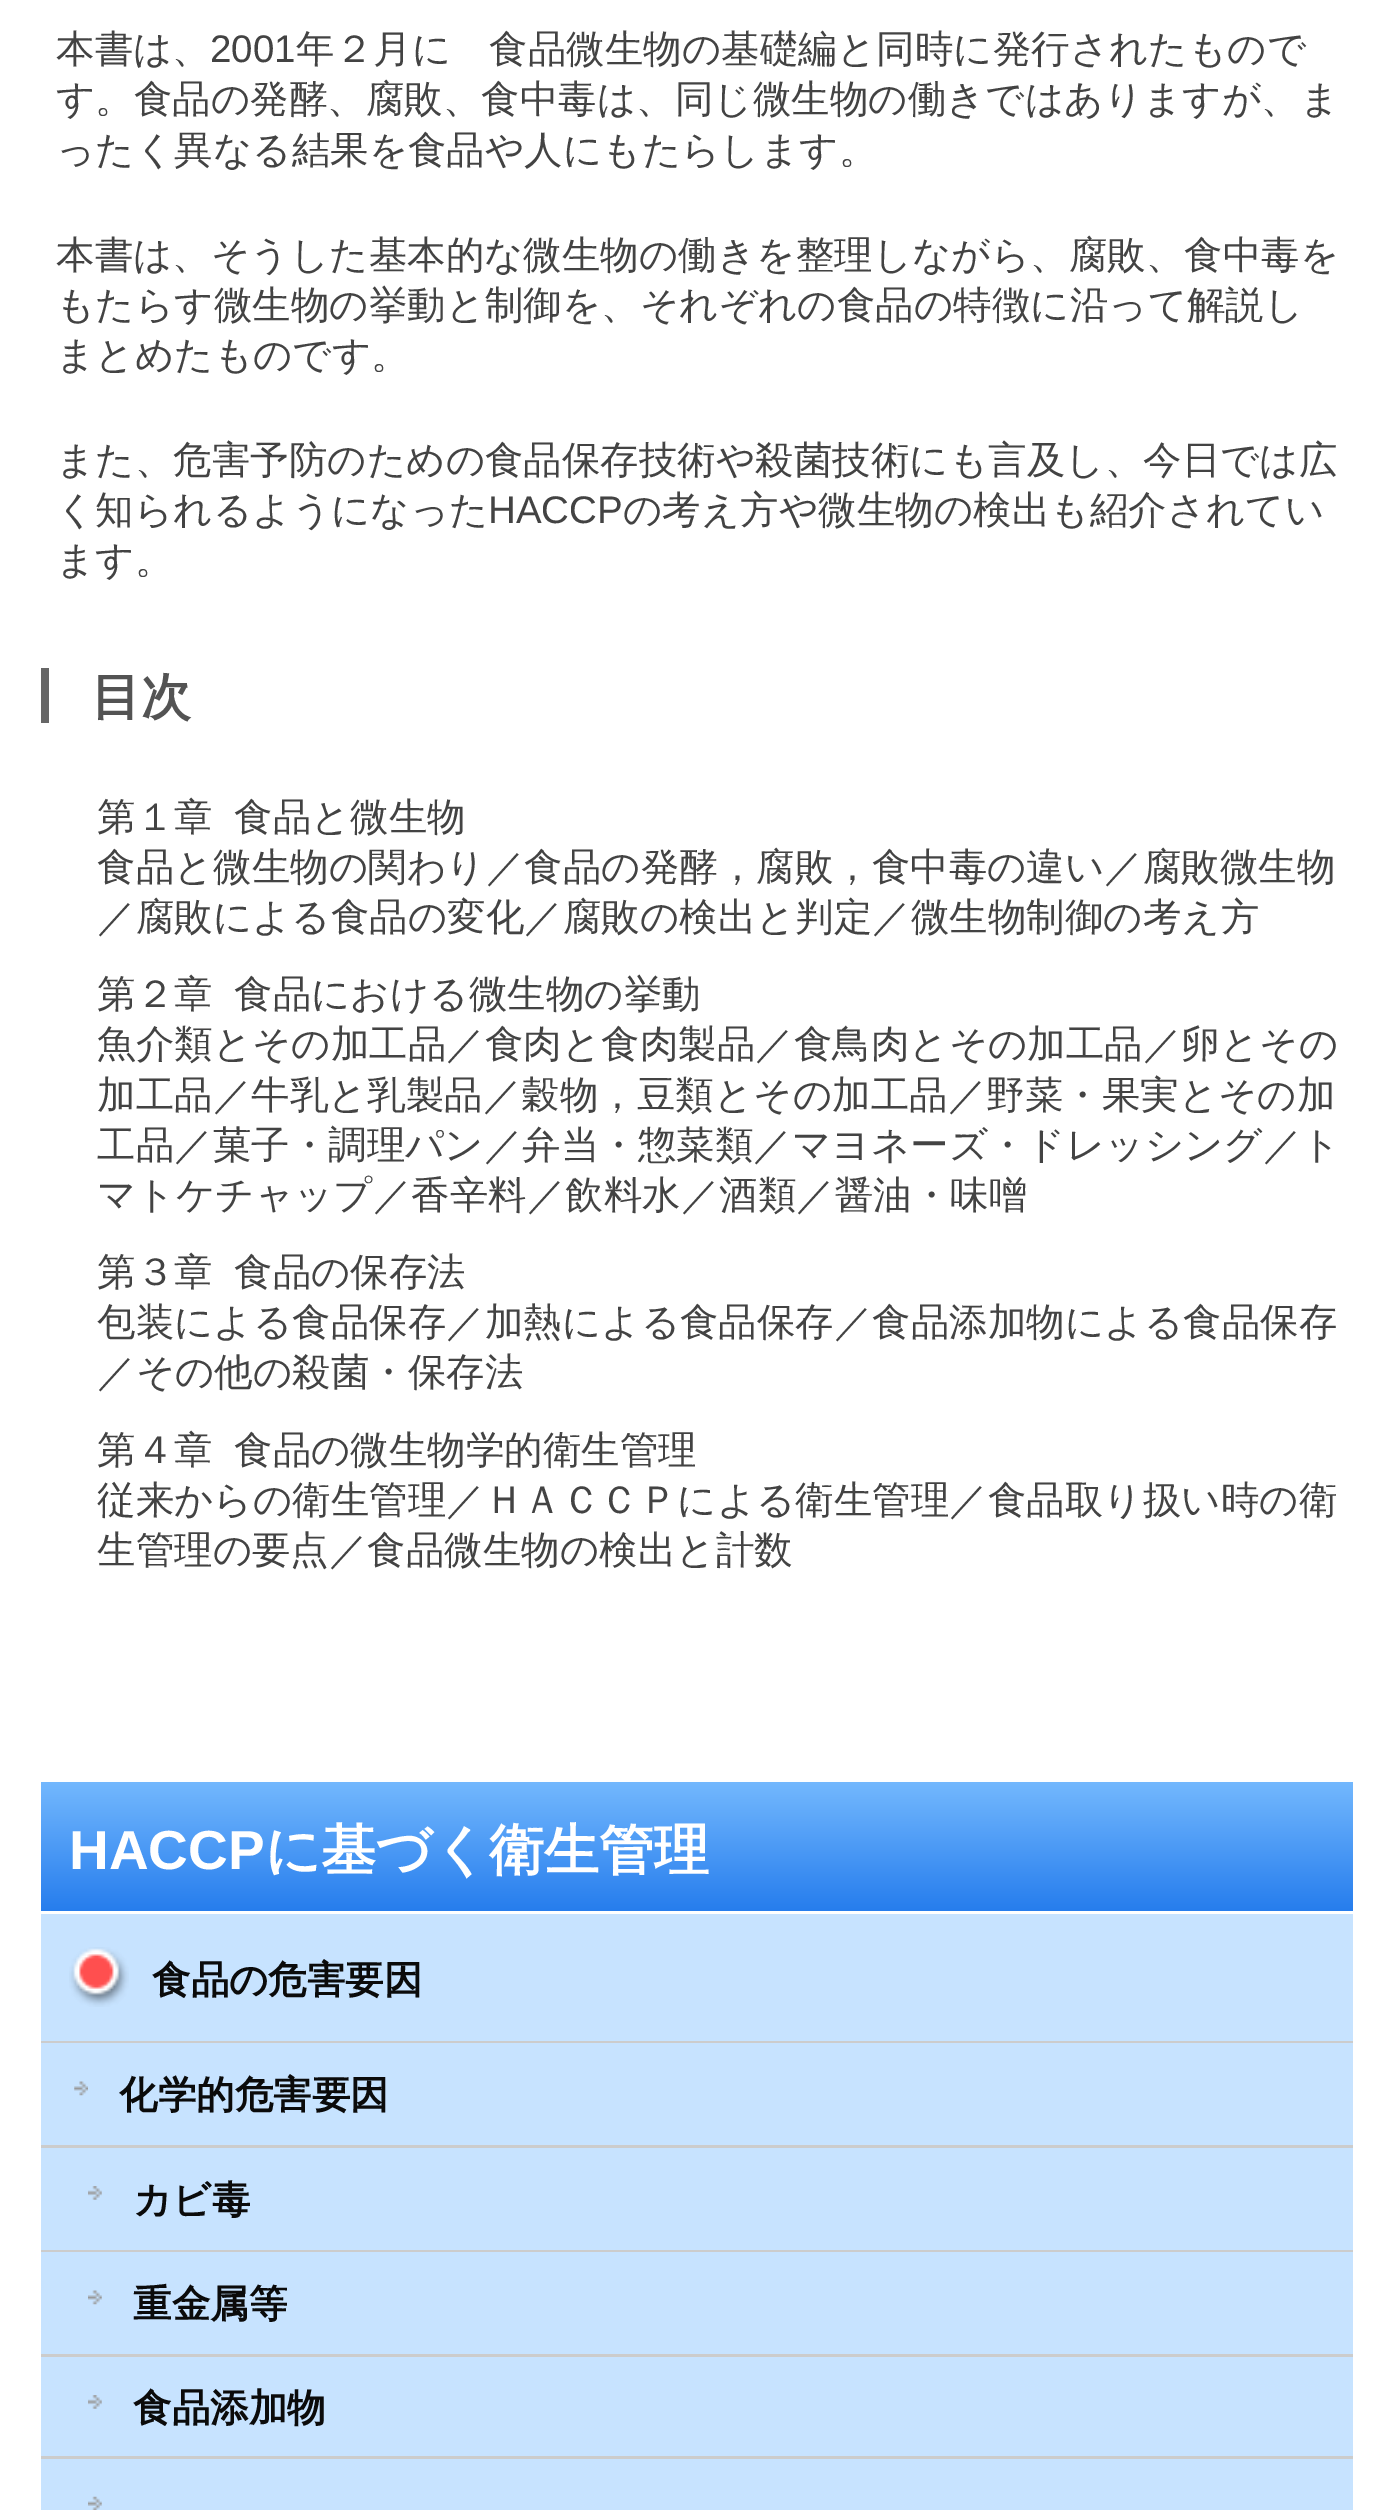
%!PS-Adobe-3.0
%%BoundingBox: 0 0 1393 2510
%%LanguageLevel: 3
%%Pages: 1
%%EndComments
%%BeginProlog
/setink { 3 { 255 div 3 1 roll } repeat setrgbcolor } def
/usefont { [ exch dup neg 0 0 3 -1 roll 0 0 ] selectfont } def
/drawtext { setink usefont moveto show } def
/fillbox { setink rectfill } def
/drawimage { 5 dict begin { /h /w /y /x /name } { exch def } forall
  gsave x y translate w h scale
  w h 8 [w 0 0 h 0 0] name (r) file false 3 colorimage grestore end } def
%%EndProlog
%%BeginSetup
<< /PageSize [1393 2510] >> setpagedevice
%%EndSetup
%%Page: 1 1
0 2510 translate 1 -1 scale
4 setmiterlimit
0 0 1393 2510 255 255 255 fillbox
(本書は、) 56 62 /WenQuanYiZenHei-Medium 38.5 67 67 67 drawtext
(2001) 210 62 /LiberationSans-Regular 38.5 67 67 67 drawtext
(年２月に　食品微生物の基礎編と同時に発行されたもので) 296 62 /WenQuanYiZenHei-Medium 38.5 67 67 67 drawtext
(す。食品の発酵、腐敗、食中毒は、同じ微生物の働きではありますが、ま) 56 112 /WenQuanYiZenHei-Medium 38.5 67 67 67 drawtext
(ったく異なる結果を食品や人にもたらします。) 56 163 /WenQuanYiZenHei-Medium 38.5 67 67 67 drawtext
(本書は、そうした基本的な微生物の働きを整理しながら、腐敗、食中毒を) 56 268 /WenQuanYiZenHei-Medium 38.5 67 67 67 drawtext
(もたらす微生物の挙動と制御を、それぞれの食品の特徴に沿って解説し) 56 318 /WenQuanYiZenHei-Medium 38.5 67 67 67 drawtext
(まとめたものです。) 56 368 /WenQuanYiZenHei-Medium 38.5 67 67 67 drawtext
(また、危害予防のための食品保存技術や殺菌技術にも言及し、今日では広) 56 473 /WenQuanYiZenHei-Medium 38.5 67 67 67 drawtext
(く知られるようになった) 56 523 /WenQuanYiZenHei-Medium 38.5 67 67 67 drawtext
(HACCP) 488 523 /LiberationSans-Regular 38.5 67 67 67 drawtext
(の考え方や微生物の検出も紹介されてい) 623 523 /WenQuanYiZenHei-Medium 38.5 67 67 67 drawtext
(ます。) 56 573 /WenQuanYiZenHei-Medium 38.5 67 67 67 drawtext
41 668 8 55 102 102 102 fillbox
(目次) 91 714 /WenQuanYiZenHei-Bold 50 83 83 83 drawtext
(第１章) 97 830 /WenQuanYiZenHei-Medium 38.5 67 67 67 drawtext
(食品と微生物) 234 830 /WenQuanYiZenHei-Medium 38.5 67 67 67 drawtext
(食品と微生物の関わり／食品の発酵，腐敗，食中毒の違い／腐敗微生物) 97 880 /WenQuanYiZenHei-Medium 38.5 67 67 67 drawtext
(／腐敗による食品の変化／腐敗の検出と判定／微生物制御の考え方) 97 930 /WenQuanYiZenHei-Medium 38.5 67 67 67 drawtext
(第２章) 97 1007 /WenQuanYiZenHei-Medium 38.5 67 67 67 drawtext
(食品における微生物の挙動) 234 1007 /WenQuanYiZenHei-Medium 38.5 67 67 67 drawtext
(魚介類とその加工品／食肉と食肉製品／食鳥肉とその加工品／卵とその) 97 1057 /WenQuanYiZenHei-Medium 38.5 67 67 67 drawtext
(加工品／牛乳と乳製品／穀物，豆類とその加工品／野菜・果実とその加) 97 1108 /WenQuanYiZenHei-Medium 38.5 67 67 67 drawtext
(工品／菓子・調理パン／弁当・惣菜類／マヨネーズ・ドレッシング／ト) 97 1158 /WenQuanYiZenHei-Medium 38.5 67 67 67 drawtext
(マトケチャップ／香辛料／飲料水／酒類／醤油・味噌) 97 1208 /WenQuanYiZenHei-Medium 38.5 67 67 67 drawtext
(第３章) 97 1285 /WenQuanYiZenHei-Medium 38.5 67 67 67 drawtext
(食品の保存法) 234 1285 /WenQuanYiZenHei-Medium 38.5 67 67 67 drawtext
(包装による食品保存／加熱による食品保存／食品添加物による食品保存) 97 1335 /WenQuanYiZenHei-Medium 38.5 67 67 67 drawtext
(／その他の殺菌・保存法) 97 1385 /WenQuanYiZenHei-Medium 38.5 67 67 67 drawtext
(第４章) 97 1463 /WenQuanYiZenHei-Medium 38.5 67 67 67 drawtext
(食品の微生物学的衛生管理) 234 1463 /WenQuanYiZenHei-Medium 38.5 67 67 67 drawtext
(従来からの衛生管理／ＨＡＣＣＰによる衛生管理／食品取り扱い時の衛) 97 1513 /WenQuanYiZenHei-Medium 38.5 67 67 67 drawtext
(生管理の要点／食品微生物の検出と計数) 97 1563 /WenQuanYiZenHei-Medium 38.5 67 67 67 drawtext
gsave 41 1782 moveto 1353 1782 lineto 1353 1911 lineto 41 1911 lineto closepath clip newpath
<< /ShadingType 2 /ColorSpace /DeviceRGB /Coords [697 1782 697 1911] /Extend [true true] /Function << /FunctionType 2 /Domain [0 1] /C0 [0.451 0.722 0.996] /C1 [0.149 0.49 0.929] /N 1 >> >> shfill grestore
(HACCP) 69 1869 /LiberationSans-Bold 55 255 255 255 drawtext
(に基づく衛生管理) 265 1869 /WenQuanYiZenHei-Bold 55 255 255 255 drawtext
41 1914 1312 596 199 227 255 fillbox
(assets/img1.rgb) 69 1947 60 60 drawimage
(食品の危害要因) 152 1993 /WenQuanYiZenHei-Bold 38.5 11 11 11 drawtext
41 2041 1312 2 204 204 204 fillbox
(assets/img2.rgb) 74 2081 14 15 drawimage
(化学的危害要因) 119 2108 /WenQuanYiZenHei-Bold 38.5 11 11 11 drawtext
41 2145 1312 3 204 204 204 fillbox
(assets/img3.rgb) 88 2186 14 14 drawimage
(カビ毒) 133 2213 /WenQuanYiZenHei-Bold 38.5 11 11 11 drawtext
41 2250 1312 2 204 204 204 fillbox
(assets/img4.rgb) 88 2290 14 15 drawimage
(重金属等) 133 2317 /WenQuanYiZenHei-Bold 38.5 11 11 11 drawtext
41 2354 1312 3 204 204 204 fillbox
(assets/img3.rgb) 88 2395 14 14 drawimage
(食品添加物) 133 2421 /WenQuanYiZenHei-Bold 38.5 11 11 11 drawtext
41 2456 1312 3 204 204 204 fillbox
(assets/img5.rgb) 88 2496 14 14 drawimage
showpage
%%EOF
